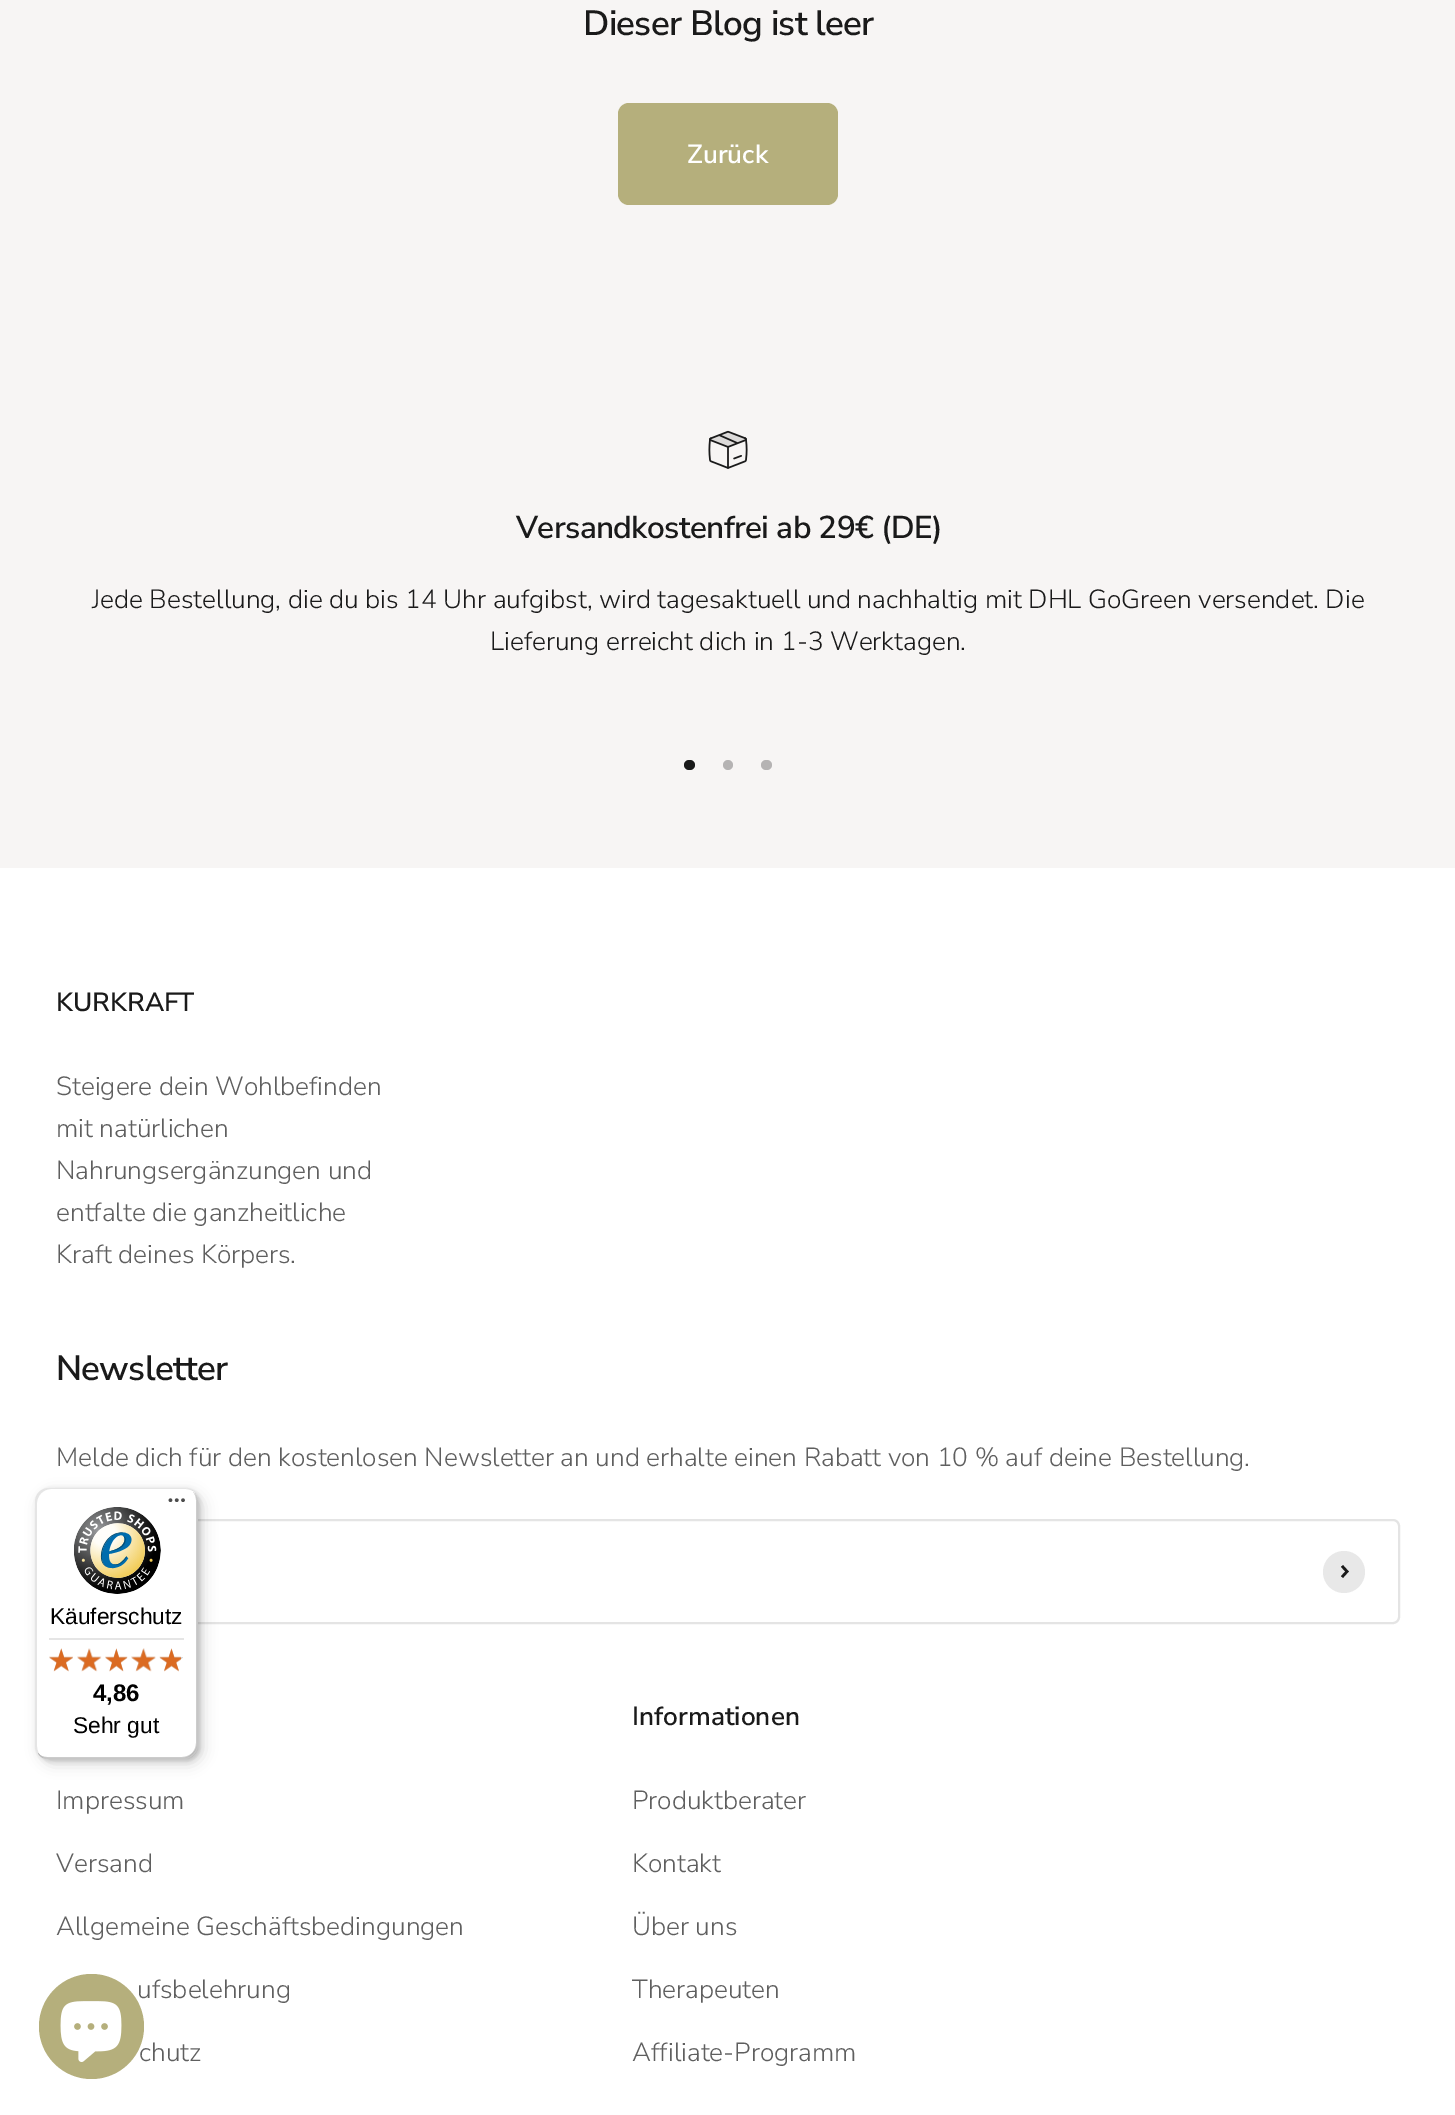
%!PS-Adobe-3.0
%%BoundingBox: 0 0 1455 2115
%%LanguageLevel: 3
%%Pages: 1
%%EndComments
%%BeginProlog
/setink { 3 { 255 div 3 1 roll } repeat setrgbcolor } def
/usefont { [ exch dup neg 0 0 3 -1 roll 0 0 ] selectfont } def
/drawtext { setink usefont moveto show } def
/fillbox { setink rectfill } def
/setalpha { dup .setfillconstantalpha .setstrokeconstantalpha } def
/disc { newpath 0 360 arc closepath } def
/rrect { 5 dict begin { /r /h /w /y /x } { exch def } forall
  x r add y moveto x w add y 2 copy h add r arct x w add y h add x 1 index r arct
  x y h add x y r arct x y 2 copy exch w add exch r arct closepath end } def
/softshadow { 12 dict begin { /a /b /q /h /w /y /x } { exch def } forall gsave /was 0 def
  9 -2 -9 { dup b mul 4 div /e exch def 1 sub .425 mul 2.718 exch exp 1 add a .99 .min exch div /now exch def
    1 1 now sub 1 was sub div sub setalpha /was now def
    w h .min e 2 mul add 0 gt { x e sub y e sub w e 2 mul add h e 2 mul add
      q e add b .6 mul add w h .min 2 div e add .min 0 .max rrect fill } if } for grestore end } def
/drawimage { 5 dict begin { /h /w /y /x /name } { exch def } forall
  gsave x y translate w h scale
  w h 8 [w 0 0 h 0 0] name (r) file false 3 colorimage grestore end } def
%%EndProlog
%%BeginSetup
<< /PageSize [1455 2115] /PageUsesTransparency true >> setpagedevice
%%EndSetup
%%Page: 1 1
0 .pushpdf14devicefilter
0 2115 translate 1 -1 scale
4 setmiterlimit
0 0 1455 2115 247 245 244 fillbox
/NunitoSans-SemiBold 35 usefont
26 26 26 setink
583 35 moveto -0.7 0 (Dieser Blog ist leer) ashow
181 175 124 setink
618 103 220 102 11 rrect fill
(Zurück) 687 163 /NunitoSans-SemiBold 26.25 255 255 255 drawtext
(assets/img1.rgb) 708 430 40 39 drawimage
/NunitoSans-SemiBold 31.5 usefont
26 26 26 setink
516 538 moveto -0.6 0 (Versandkostenfrei ab 29€ \(DE\)) ashow
(Jede Bestellung, die du bis 14 Uhr aufgibst, wird tagesaktuell und nachhaltig mit DHL GoGreen versendet. Die) 92 608 /NunitoSans-Light 26.25 26 26 26 drawtext
(Lieferung erreicht dich in 1-3 Werktagen.) 490 650 /NunitoSans-Light 26.25 26 26 26 drawtext
684 760 11 10 5 rrect fill
181 179 179 setink
728 765 5 disc fill
761 760 11 10 5 rrect fill
0 868 1455 1247 255 255 255 fillbox
(KURKRAFT) 56 1011 /NunitoSans-SemiBold 26.25 26 26 26 drawtext
(Steigere dein Wohlbefinden) 56 1095 /NunitoSans-Light 26.25 95 95 95 drawtext
(mit natürlichen) 56 1137 /NunitoSans-Light 26.25 95 95 95 drawtext
(Nahrungsergänzungen und) 56 1179 /NunitoSans-Light 26.25 95 95 95 drawtext
(entfalte die ganzheitliche) 56 1221 /NunitoSans-Light 26.25 95 95 95 drawtext
(Kraft deines Körpers.) 56 1263 /NunitoSans-Light 26.25 95 95 95 drawtext
/NunitoSans-SemiBold 35 usefont
26 26 26 setink
56 1380 moveto -0.7 0 (Newsletter) ashow
(Melde dich für den kostenlosen Newsletter an und erhalte einen Rabatt von 10 % auf deine Bestellung.) 56 1466 /NunitoSans-Light 26.25 95 95 95 drawtext
228 228 228 setink
2 setlinewidth
57 1520 1342 103 6 rrect stroke
232 232 232 setink
1344 1572 21 disc fill
26 26 26 setink
2.6 setlinewidth
1342 1577 moveto 1347 1571.5 lineto 1342 1566 lineto stroke
(Impressum) 56 1809 /NunitoSans-Light 26.25 95 95 95 drawtext
(Versand) 56 1872 /NunitoSans-Light 26.25 95 95 95 drawtext
(Allgemeine Geschäftsbedingungen) 56 1935 /NunitoSans-Light 26.25 95 95 95 drawtext
(ufsbelehrung) 137 1998 /NunitoSans-Light 26.25 95 95 95 drawtext
(chutz) 139 2061 /NunitoSans-Light 26.25 95 95 95 drawtext
(Informationen) 632 1725 /NunitoSans-SemiBold 26.25 26 26 26 drawtext
(Produktberater) 632 1809 /NunitoSans-Light 26.25 95 95 95 drawtext
(Kontakt) 632 1872 /NunitoSans-Light 26.25 95 95 95 drawtext
(Über uns) 632 1935 /NunitoSans-Light 26.25 95 95 95 drawtext
(Therapeuten) 632 1998 /NunitoSans-Light 26.25 95 95 95 drawtext
(Affiliate-Programm) 632 2061 /NunitoSans-Light 26.25 95 95 95 drawtext
0 0 0 setink
40 1493 163 271 14 7 0.15 softshadow
37 1489 163 272 14 2 0.15 softshadow
255 255 255 setink
35 1488 163 271 14 rrect fill
0.1 setalpha
0 0 0 setink
51 1489 moveto 186 1489 lineto 188 1489 191 1490 193 1491 curveto 190 1489 187 1488 184 1488 curveto 49 1488 lineto 41 1488 35 1494 35 1502 curveto 35 1745 lineto 35 1751 38 1755 43 1758 curveto 39 1755 37 1751 37 1746 curveto 37 1503 lineto 37 1496 43 1489 51 1489 curveto closepath fill
0.2 setalpha
38 1753 moveto 40 1757 44 1759 49 1759 curveto 184 1759 lineto 192 1759 198 1753 198 1745 curveto 198 1502 lineto 198 1498 196 1494 193 1492 curveto 195 1494 196 1497 196 1500 curveto 196 1743 lineto 196 1751 190 1757 182 1757 curveto 47 1757 lineto 44 1757 40 1756 38 1753 curveto closepath fill
50 50 50 setink
38 1753 moveto 40 1757 44 1759 49 1759 curveto 184 1759 lineto 192 1759 198 1753 198 1745 curveto 198 1502 lineto 198 1499 197 1496 195 1493 curveto 196 1495 197 1498 197 1500 curveto 197 1744 lineto 197 1751 190 1758 183 1758 curveto 48 1758 lineto 44 1758 40 1756 38 1753 curveto closepath fill
0.3 setalpha
255 255 255 setink
40 1755 moveto 42 1758 45 1759 49 1759 curveto 184 1759 lineto 192 1759 198 1753 198 1745 curveto 198 1502 lineto 198 1498 197 1495 194 1493 curveto 196 1495 197 1498 197 1501 curveto 197 1744 lineto 197 1752 191 1758 183 1758 curveto 48 1758 lineto 45 1758 42 1757 40 1755 curveto closepath fill
1 setalpha
(assets/img2.rgb) 168 1498 17 4 drawimage
(assets/img3.rgb) 74 1507 87 87 drawimage
(Käuferschutz) 50 1624 /LiberationSans-Regular 22.75 0 0 0 drawtext
49 1638 135 2 229 229 229 fillbox
(assets/img4.rgb) 49 1649 24 22 drawimage
(assets/img5.rgb) 77 1648 24 23 drawimage
(assets/img6.rgb) 105 1649 23 22 drawimage
(assets/img7.rgb) 131 1648 25 23 drawimage
(assets/img8.rgb) 159 1649 24 22 drawimage
(assets/img9.rgb) 49 1648 24 24 drawimage
(assets/img10.rgb) 77 1648 25 24 drawimage
(assets/img11.rgb) 105 1648 23 24 drawimage
(assets/img12.rgb) 131 1648 25 24 drawimage
(assets/img13.rgb) 159 1648 22 24 drawimage
(4,86) 93 1701 /LiberationSans-Bold 24 0 0 0 drawtext
(Sehr gut) 73 1733 /LiberationSans-Regular 22.75 0 0 0 drawtext
181 175 124 setink
91.5 2026.5 52.5 disc fill
(assets/img14.rgb) 60 2001 62 61 drawimage
.poppdf14devicefilter showpage
%%EOF
